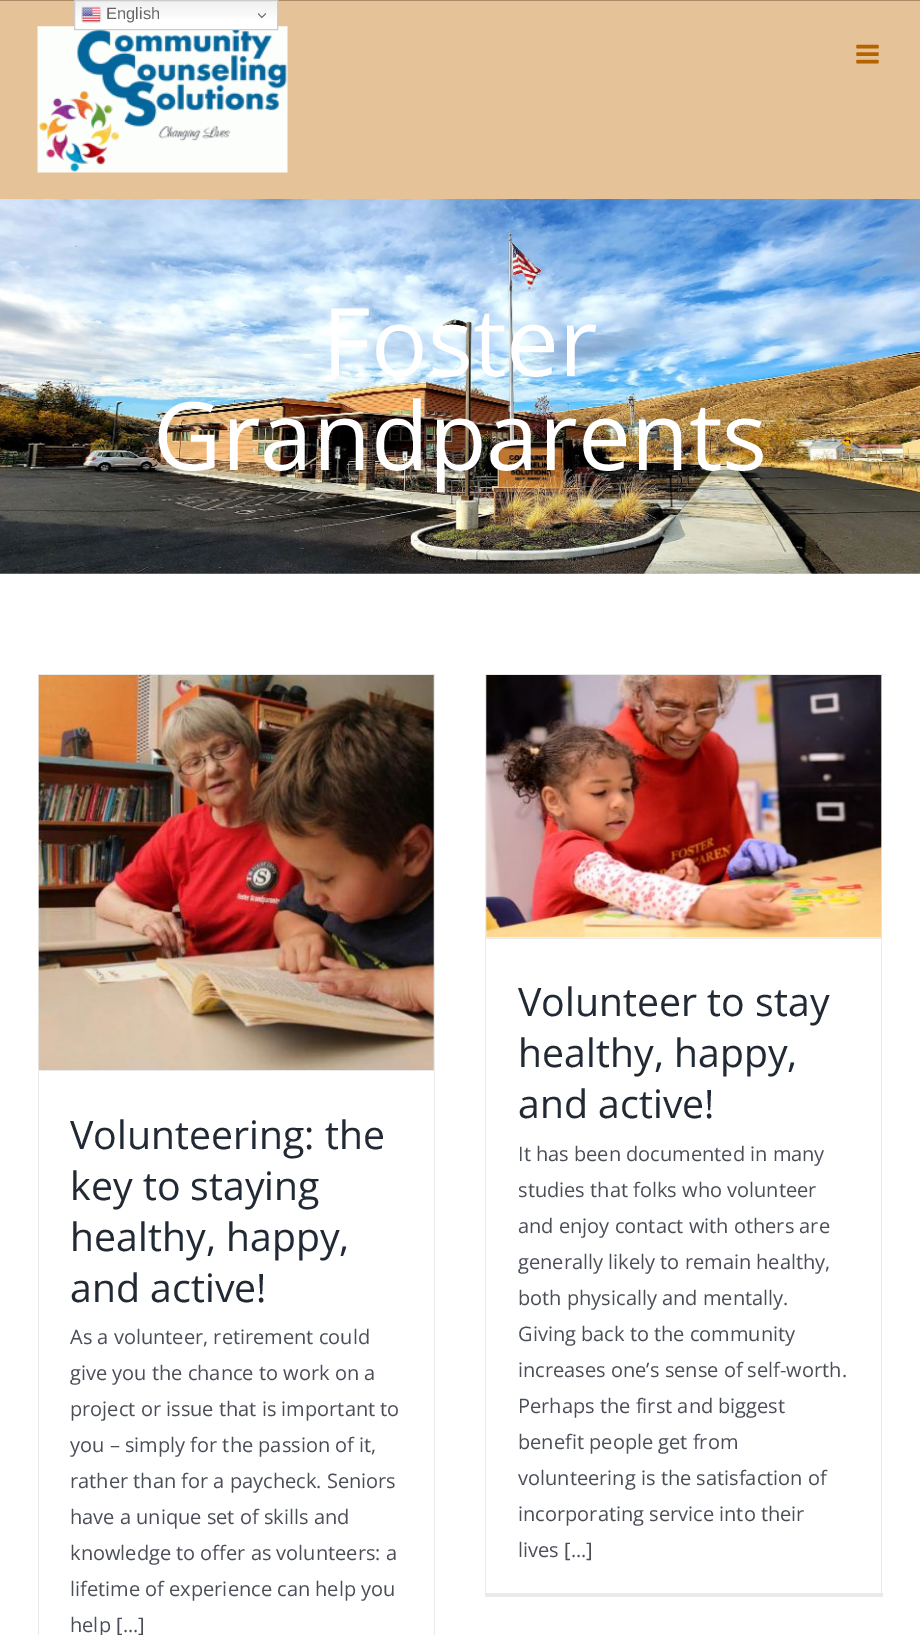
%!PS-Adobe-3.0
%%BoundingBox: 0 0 920 1635
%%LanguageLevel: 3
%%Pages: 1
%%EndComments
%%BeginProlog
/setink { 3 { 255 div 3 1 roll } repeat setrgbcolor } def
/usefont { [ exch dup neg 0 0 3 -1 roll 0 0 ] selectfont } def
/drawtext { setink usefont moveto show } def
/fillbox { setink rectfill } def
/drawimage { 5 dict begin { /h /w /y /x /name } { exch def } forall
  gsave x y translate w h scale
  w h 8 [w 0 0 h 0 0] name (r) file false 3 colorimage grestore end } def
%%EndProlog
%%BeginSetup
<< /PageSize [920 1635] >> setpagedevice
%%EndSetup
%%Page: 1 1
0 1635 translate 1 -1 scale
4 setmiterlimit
0 0 920 1635 255 255 255 fillbox
0 1 920 198 229 194 151 fillbox
(assets/img3.rgb) 37 26 251 147 drawimage
gsave 75 1 moveto 277 1 lineto 277 29 lineto 75 29 lineto closepath clip newpath
<< /ShadingType 2 /ColorSpace /DeviceRGB /Coords [176 0 176 30] /Extend [true true] /Function << /FunctionType 3 /Domain [0 1] /Functions [<< /FunctionType 2 /Domain [0 1] /C0 [0.937 0.937 0.937] /C1 [1 1 1] /N 1 >> << /FunctionType 2 /Domain [0 1] /C0 [1 1 1] /C1 [1 1 1] /N 1 >>] /Bounds [0.7] /Encode [0 1 0 1] >> >> shfill grestore
0 0 920 1 171 139 101 fillbox
204 204 204 setink
74.5 0.5 203 29 rectstroke
(assets/img1.rgb) 81 6 21 18 drawimage
(English) 106 19 /LiberationSans-Regular 16.5 102 102 102 drawtext
(assets/img2.rgb) 258 13 8 6 drawimage
(assets/img4.rgb) 856 44 23 20 drawimage
(assets/img5.rgb) 0 199 920 375 drawimage
(Foster) 322 376 /OpenSans-Regular 94.5 255 255 255 drawtext
(Grandparents) 153 470 /OpenSans-Regular 94.5 255 255 255 drawtext
38 674 397 1 235 234 234 fillbox
434 674 1 961 235 234 234 fillbox
38 674 1 961 235 234 234 fillbox
39 1070 395 1 235 234 234 fillbox
(assets/img6.rgb) 38 675 396 395 drawimage
(Volunteering: the) 70 1149 /OpenSans-Regular 39.25 33 41 52 drawtext
(key to staying) 70 1200 /OpenSans-Regular 39.25 33 41 52 drawtext
(healthy, happy,) 70 1251 /OpenSans-Regular 39.25 33 41 52 drawtext
(and active!) 70 1302 /OpenSans-Regular 39.25 33 41 52 drawtext
(As a volunteer, retirement could) 70 1344 /OpenSans-Regular 20 74 78 87 drawtext
(give you the chance to work on a) 70 1380 /OpenSans-Regular 20 74 78 87 drawtext
(project or issue that is important to) 70 1416 /OpenSans-Regular 20 74 78 87 drawtext
(you – simply for the passion of it,) 70 1452 /OpenSans-Regular 20 74 78 87 drawtext
(rather than for a paycheck. Seniors) 70 1488 /OpenSans-Regular 20 74 78 87 drawtext
(have a unique set of skills and) 70 1524 /OpenSans-Regular 20 74 78 87 drawtext
(knowledge to offer as volunteers: a) 70 1560 /OpenSans-Regular 20 74 78 87 drawtext
(lifetime of experience can help you) 70 1596 /OpenSans-Regular 20 74 78 87 drawtext
(help [...]) 70 1632 /OpenSans-Regular 20 74 78 87 drawtext
485 674 398 1 235 234 234 fillbox
881 674 1 922 235 234 234 fillbox
485 1593 398 4 235 234 234 fillbox
485 674 1 922 235 234 234 fillbox
486 938 395 1 235 234 234 fillbox
(assets/img7.rgb) 486 675 396 263 drawimage
(Volunteer to stay) 518 1016 /OpenSans-Regular 39.25 33 41 52 drawtext
(healthy, happy,) 518 1067 /OpenSans-Regular 39.25 33 41 52 drawtext
(and active!) 518 1118 /OpenSans-Regular 39.25 33 41 52 drawtext
(It has been documented in many) 518 1161 /OpenSans-Regular 20 74 78 87 drawtext
(studies that folks who volunteer) 518 1197 /OpenSans-Regular 20 74 78 87 drawtext
(and enjoy contact with others are) 518 1233 /OpenSans-Regular 20 74 78 87 drawtext
(generally likely to remain healthy,) 518 1269 /OpenSans-Regular 20 74 78 87 drawtext
(both physically and mentally.) 518 1305 /OpenSans-Regular 20 74 78 87 drawtext
(Giving back to the community) 518 1341 /OpenSans-Regular 20 74 78 87 drawtext
(increases one’s sense of self-worth.) 518 1377 /OpenSans-Regular 20 74 78 87 drawtext
(Perhaps the first and biggest) 518 1413 /OpenSans-Regular 20 74 78 87 drawtext
(benefit people get from) 518 1449 /OpenSans-Regular 20 74 78 87 drawtext
(volunteering is the satisfaction of) 518 1485 /OpenSans-Regular 20 74 78 87 drawtext
(incorporating service into their) 518 1521 /OpenSans-Regular 20 74 78 87 drawtext
(lives [...]) 518 1557 /OpenSans-Regular 20 74 78 87 drawtext
showpage
%%EOF
